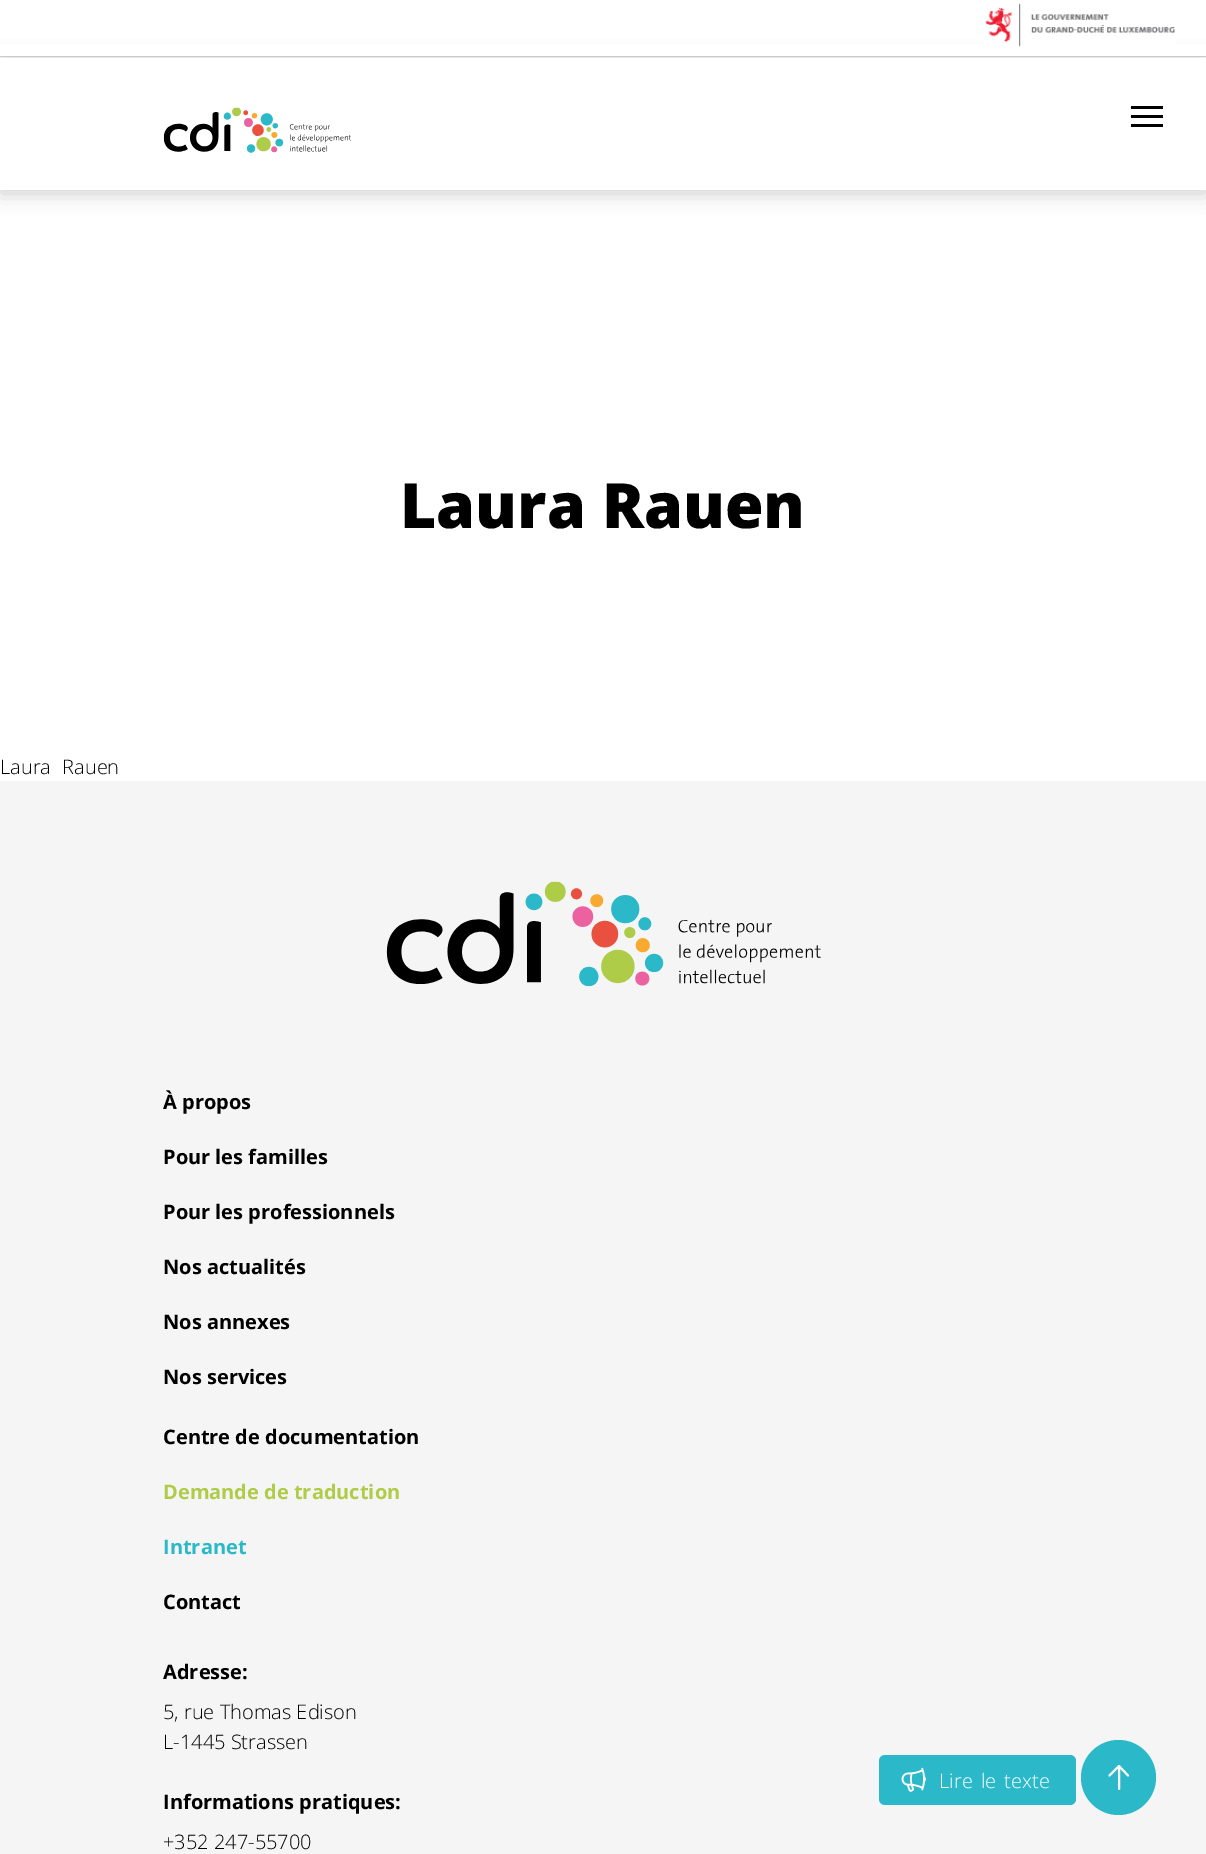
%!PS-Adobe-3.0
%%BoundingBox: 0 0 1206 1854
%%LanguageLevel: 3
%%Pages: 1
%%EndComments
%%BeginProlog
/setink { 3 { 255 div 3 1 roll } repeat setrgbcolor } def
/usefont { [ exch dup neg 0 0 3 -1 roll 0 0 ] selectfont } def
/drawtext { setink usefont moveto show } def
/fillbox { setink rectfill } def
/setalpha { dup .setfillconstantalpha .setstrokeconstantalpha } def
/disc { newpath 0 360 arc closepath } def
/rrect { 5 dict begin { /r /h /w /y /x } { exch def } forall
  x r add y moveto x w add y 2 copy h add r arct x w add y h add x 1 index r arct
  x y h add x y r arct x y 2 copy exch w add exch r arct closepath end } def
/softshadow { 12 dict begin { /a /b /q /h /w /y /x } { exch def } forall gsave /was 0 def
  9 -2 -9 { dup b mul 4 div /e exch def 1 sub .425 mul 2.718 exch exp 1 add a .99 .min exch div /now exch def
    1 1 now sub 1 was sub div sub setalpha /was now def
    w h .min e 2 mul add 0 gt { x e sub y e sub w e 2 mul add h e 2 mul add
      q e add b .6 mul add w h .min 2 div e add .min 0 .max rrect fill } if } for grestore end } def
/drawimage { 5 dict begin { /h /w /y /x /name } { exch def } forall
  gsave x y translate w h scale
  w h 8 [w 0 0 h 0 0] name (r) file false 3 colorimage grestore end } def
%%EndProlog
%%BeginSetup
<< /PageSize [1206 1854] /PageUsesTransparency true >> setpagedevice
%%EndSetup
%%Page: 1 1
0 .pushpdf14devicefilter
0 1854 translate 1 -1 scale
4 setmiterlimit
0 0 1206 1854 255 255 255 fillbox
gsave
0 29 moveto 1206 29 lineto 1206 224 lineto 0 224 lineto closepath 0 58 moveto 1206 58 lineto 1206 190 lineto 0 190 lineto closepath eoclip newpath
0 0 0 setink
0 60 1206 133 0 10 0.2 softshadow
grestore
0 44 1206 12 255 255 255 fillbox
0 56 1206 1 204 202 202 fillbox
(assets/img1.rgb) 985 3 191 44 drawimage
(assets/img2.rgb) 163 107 188 46 drawimage
1131 115 32 3 0 0 0 fillbox
1131 106 32 3 0 0 0 fillbox
1131 124 32 3 0 0 0 fillbox
(Laura Rauen) 400 528 /OpenSans-ExtraBold 62.5 0 0 0 drawtext
/OpenSans-Light 20 usefont
0 774 moveto 6 0 32 (Laura Rauen) widthshow
0 781 1206 1073 245 245 245 fillbox
(assets/img3.rgb) 386 881 435 106 drawimage
(À propos) 163 1109 /OpenSans-Bold 20 0 0 0 drawtext
(Pour les familles) 163 1164 /OpenSans-Bold 20 0 0 0 drawtext
(Pour les professionnels) 163 1219 /OpenSans-Bold 20 0 0 0 drawtext
(Nos actualités) 163 1274 /OpenSans-Bold 20 0 0 0 drawtext
(Nos annexes) 163 1329 /OpenSans-Bold 20 0 0 0 drawtext
(Nos services) 163 1384 /OpenSans-Bold 20 0 0 0 drawtext
(Centre de documentation) 163 1444 /OpenSans-Bold 20 0 0 0 drawtext
(Demande de traduction) 163 1499 /OpenSans-Bold 20 174 204 72 drawtext
(Intranet) 163 1554 /OpenSans-Bold 20 43 184 201 drawtext
(Contact) 163 1609 /OpenSans-Bold 20 0 0 0 drawtext
(Adresse:) 163 1679 /OpenSans-Bold 20 0 0 0 drawtext
(5, rue Thomas Edison) 163 1719 /OpenSans-Light 20 0 0 0 drawtext
(L-1445 Strassen) 163 1749 /OpenSans-Light 20 0 0 0 drawtext
(Informations pratiques:) 163 1809 /OpenSans-Bold 20 0 0 0 drawtext
(+352 247-55700) 163 1849 /OpenSans-Light 20 0 0 0 drawtext
43 184 201 setink
879 1755 197 50 6 rrect fill
(assets/img4.rgb) 901 1767 25 25 drawimage
255 255 255 setink
939 1788 moveto 3 0 32 (Lire le texte) widthshow
43 184 201 setink
1118.5 1777.5 37.5 disc fill
255 255 255 setink
1.9 setlinewidth
1 setlinecap
1 setlinejoin
1109.5 1775.5 moveto 1119 1766 lineto 1119 1766 moveto 1128 1775.5 lineto 1119 1766 moveto 1119 1789 lineto stroke
.poppdf14devicefilter showpage
%%EOF
